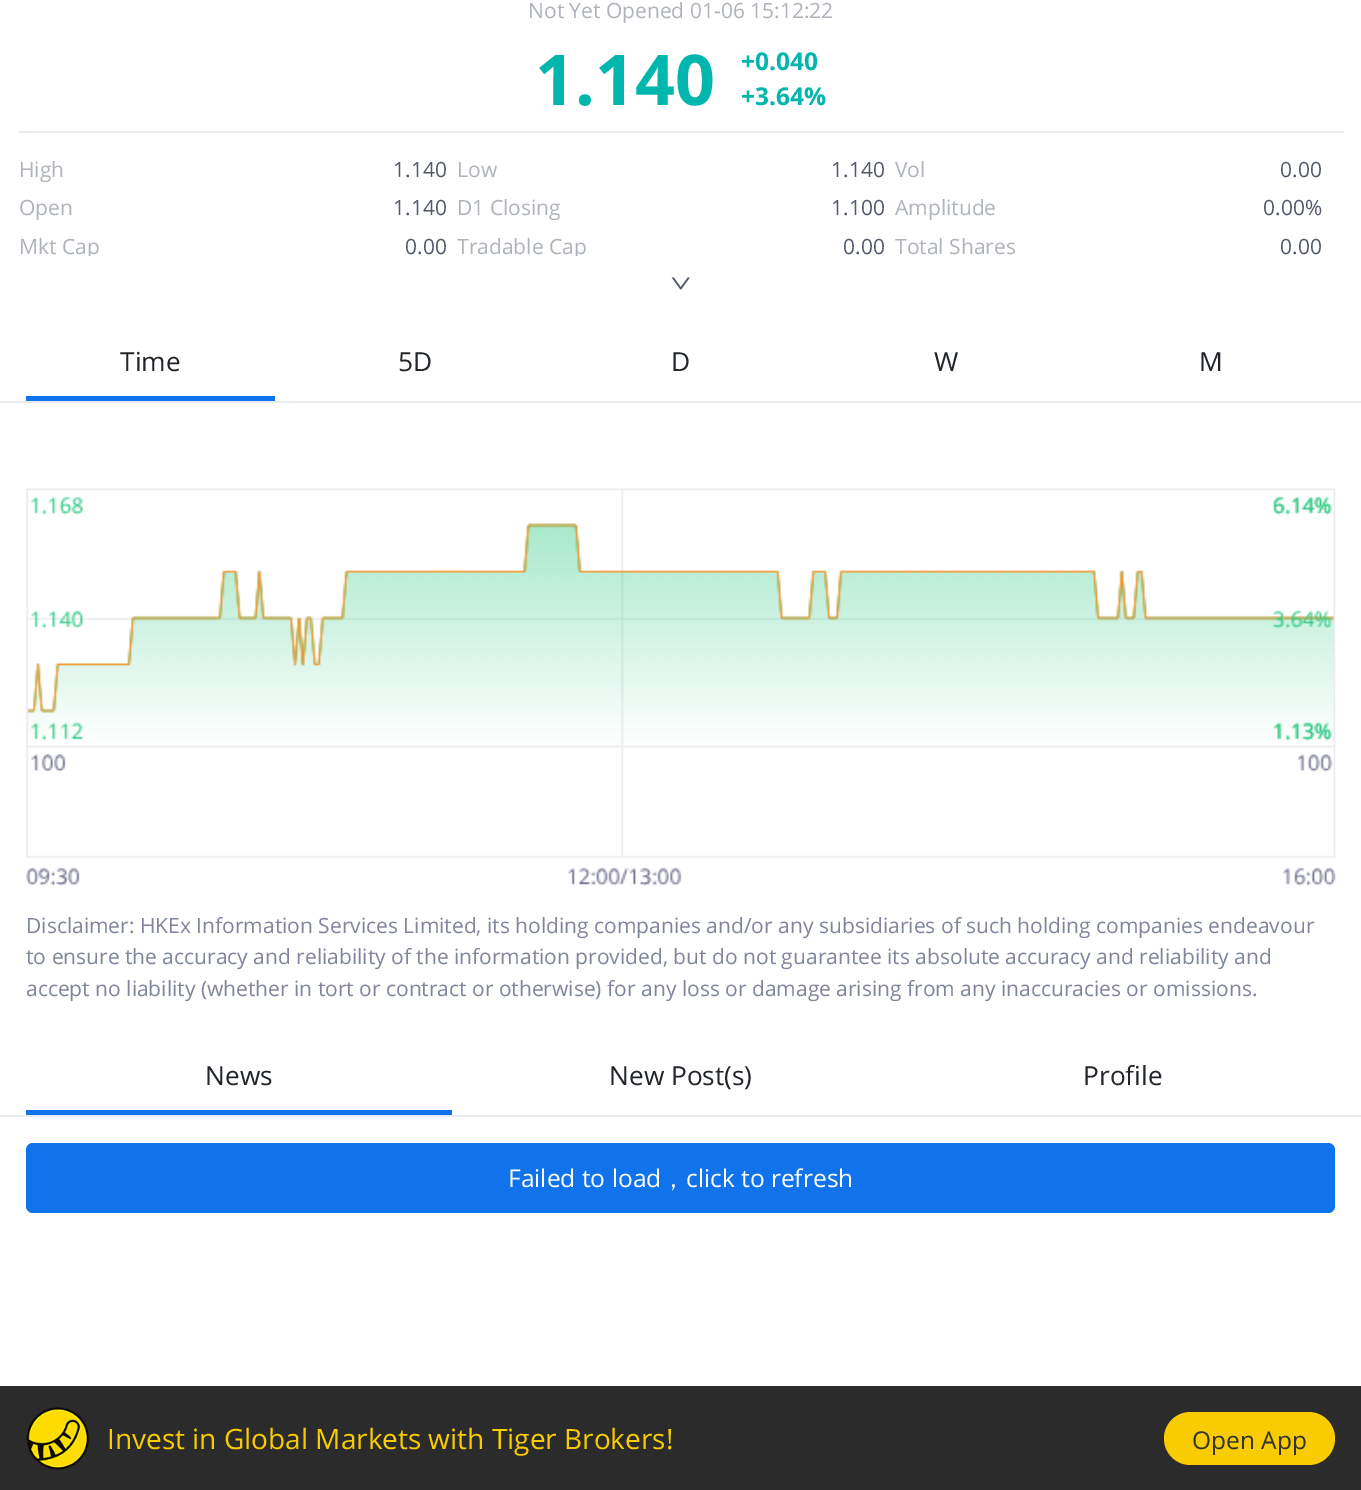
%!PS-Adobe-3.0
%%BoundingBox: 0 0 1361 1490
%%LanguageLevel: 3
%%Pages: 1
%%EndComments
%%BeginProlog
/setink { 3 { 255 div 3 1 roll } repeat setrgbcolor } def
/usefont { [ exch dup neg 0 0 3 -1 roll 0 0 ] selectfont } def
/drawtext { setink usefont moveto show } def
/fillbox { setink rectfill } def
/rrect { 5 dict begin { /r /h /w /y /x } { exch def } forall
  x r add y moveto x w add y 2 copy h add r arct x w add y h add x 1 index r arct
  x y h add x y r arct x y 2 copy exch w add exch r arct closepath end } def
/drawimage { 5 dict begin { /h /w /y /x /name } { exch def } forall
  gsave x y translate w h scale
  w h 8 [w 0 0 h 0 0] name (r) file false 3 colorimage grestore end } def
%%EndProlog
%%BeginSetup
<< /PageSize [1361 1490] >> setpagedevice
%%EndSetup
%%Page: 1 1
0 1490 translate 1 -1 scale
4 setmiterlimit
0 0 1361 1490 255 255 255 fillbox
(Not Yet Opened 01-06 15:12:22) 528 18 /OpenSans-Regular 21 175 179 186 drawtext
(1.140) 535 105 /OpenSans-Bold 70 0 182 173 drawtext
(+0.040) 741 70 /OpenSans-Bold 24.5 0 182 173 drawtext
(+3.64%) 741 105 /OpenSans-Bold 24.5 0 182 173 drawtext
18 131 1326 2 235 236 241 fillbox
(High) 19 177 /OpenSans-Regular 21 175 179 186 drawtext
(1.140) 393 177 /OpenSans-Regular 21 80 88 107 drawtext
(Low) 457 177 /OpenSans-Regular 21 175 179 186 drawtext
(1.140) 831 177 /OpenSans-Regular 21 80 88 107 drawtext
(Vol) 895 177 /OpenSans-Regular 21 175 179 186 drawtext
(0.00) 1280 177 /OpenSans-Regular 21 80 88 107 drawtext
(Open) 19 215 /OpenSans-Regular 21 175 179 186 drawtext
(1.140) 393 215 /OpenSans-Regular 21 80 88 107 drawtext
(D1 Closing) 457 215 /OpenSans-Regular 21 175 179 186 drawtext
(1.100) 831 215 /OpenSans-Regular 21 80 88 107 drawtext
(Amplitude) 895 215 /OpenSans-Regular 21 175 179 186 drawtext
(0.00%) 1263 215 /OpenSans-Regular 21 80 88 107 drawtext
gsave
19 229 81 27 rectclip
(Mkt Cap) 19 254 /OpenSans-Regular 21 175 179 186 drawtext
grestore
(0.00) 405 254 /OpenSans-Regular 21 80 88 107 drawtext
gsave
457 229 129 27 rectclip
(Tradable Cap) 457 254 /OpenSans-Regular 21 175 179 186 drawtext
grestore
(0.00) 843 254 /OpenSans-Regular 21 80 88 107 drawtext
(Total Shares) 895 254 /OpenSans-Regular 21 175 179 186 drawtext
(0.00) 1280 254 /OpenSans-Regular 21 80 88 107 drawtext
(assets/img1.rgb) 671 277 19 13 drawimage
0 401 1361 2 233 236 239 fillbox
26 396 249 5 16 115 235 fillbox
(Time) 120 371 /OpenSans-Regular 26.25 33 37 41 drawtext
(5D) 398 371 /OpenSans-Regular 26.25 33 37 41 drawtext
(D) 671 371 /OpenSans-Regular 26.25 33 37 41 drawtext
(W) 934 371 /OpenSans-Regular 26.25 33 37 41 drawtext
(M) 1199 371 /OpenSans-Regular 26.25 33 37 41 drawtext
(assets/img2.rgb) 26 488 1310 398 drawimage
(Disclaimer: HKEx Information Services Limited, its holding companies and/or any subsidiaries of such holding companies endeavour) 26 933 /OpenSans-Regular 21 126 134 157 drawtext
(to ensure the accuracy and reliability of the information provided, but do not guarantee its absolute accuracy and reliability and) 26 964 /OpenSans-Regular 21 126 134 157 drawtext
(accept no liability \(whether in tort or contract or otherwise\) for any loss or damage arising from any inaccuracies or omissions.) 26 996 /OpenSans-Regular 21 126 134 157 drawtext
0 1115 1361 2 233 236 239 fillbox
26 1110 426 5 16 115 235 fillbox
(News) 205 1085 /OpenSans-Regular 26.25 33 37 41 drawtext
(New Post\(s\)) 609 1085 /OpenSans-Regular 26.25 33 37 41 drawtext
(Profile) 1083 1085 /OpenSans-Regular 26.25 33 37 41 drawtext
16 115 235 setink
26 1143 1309 70 7 rrect fill
(Failed to load) 508 1187 /OpenSans-Regular 24.5 255 255 255 drawtext
(，) 661 1187 /WenQuanYiZenHei-Medium 24.5 255 255 255 drawtext
(click to refresh) 686 1187 /OpenSans-Regular 24.5 255 255 255 drawtext
0 1386 1361 104 43 43 43 fillbox
(assets/img3.rgb) 26 1407 64 63 drawimage
(Invest in Global Markets with Tiger Brokers!) 107 1449 /OpenSans-Regular 28 248 204 0 drawtext
1164 1412 171 53 26.5 rrect fill
(Open App) 1192 1449 /OpenSans-Regular 24.5 51 51 51 drawtext
showpage
%%EOF
